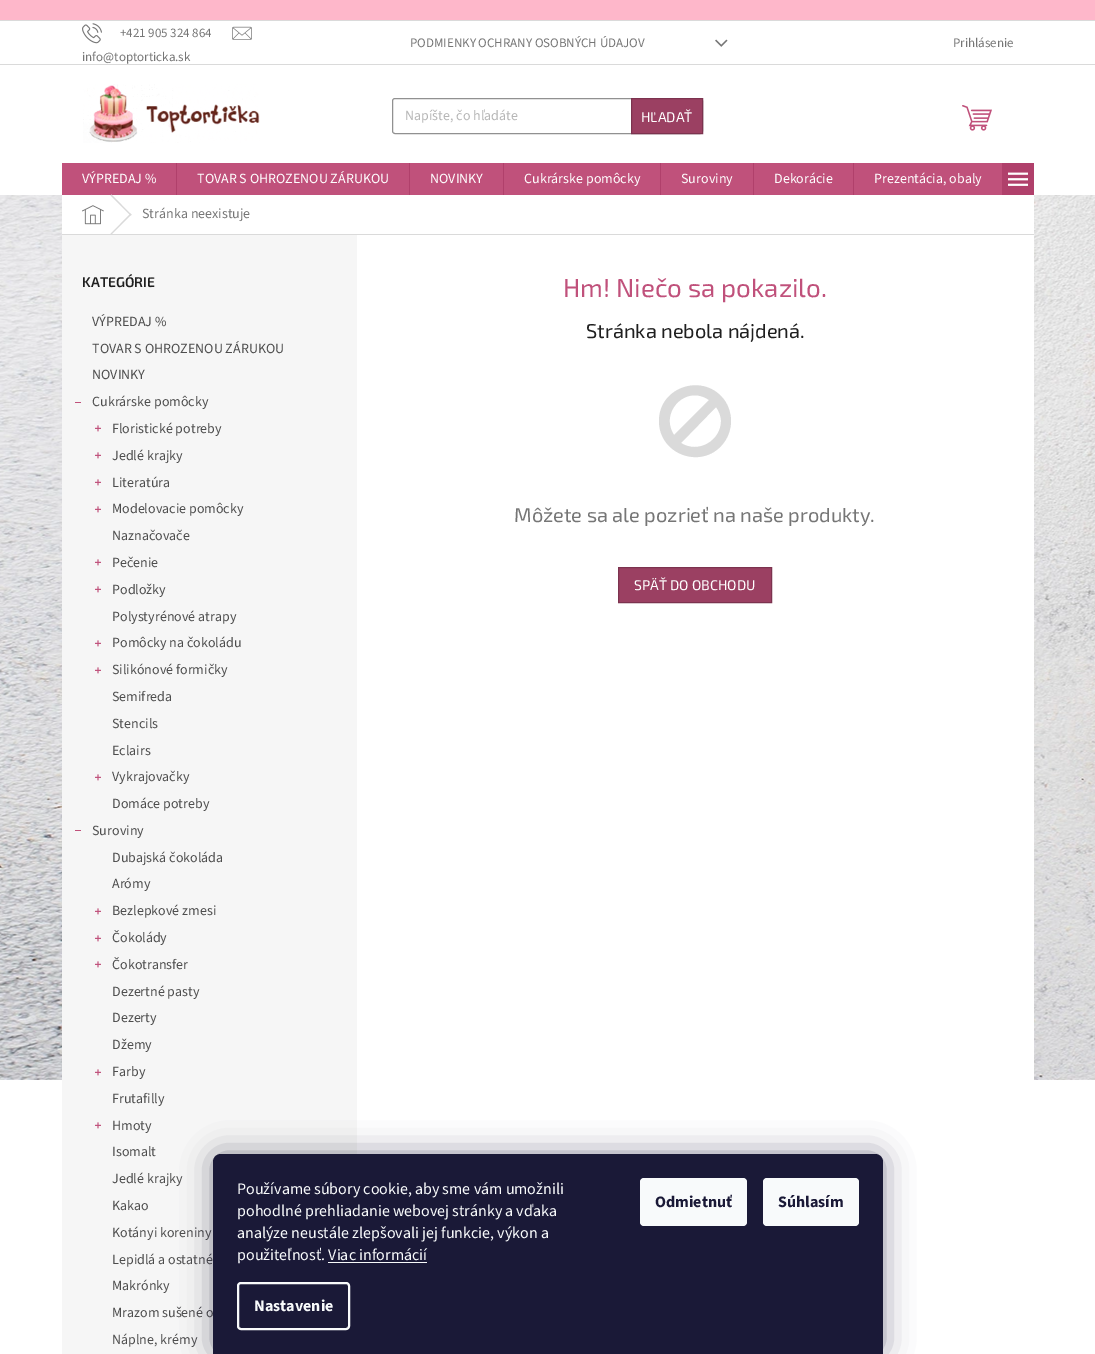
%!PS-Adobe-3.0
%%BoundingBox: 0 0 1095 1354
%%LanguageLevel: 3
%%Pages: 1
%%EndComments
%%BeginProlog
/setink { 3 { 255 div 3 1 roll } repeat setrgbcolor } def
/usefont { [ exch dup neg 0 0 3 -1 roll 0 0 ] selectfont } def
/drawtext { setink usefont moveto show } def
/fillbox { setink rectfill } def
/setalpha { dup .setfillconstantalpha .setstrokeconstantalpha } def
/rrect { 5 dict begin { /r /h /w /y /x } { exch def } forall
  x r add y moveto x w add y 2 copy h add r arct x w add y h add x 1 index r arct
  x y h add x y r arct x y 2 copy exch w add exch r arct closepath end } def
/softshadow { 12 dict begin { /a /b /q /h /w /y /x } { exch def } forall gsave /was 0 def
  9 -2 -9 { dup b mul 4 div /e exch def 1 sub .425 mul 2.718 exch exp 1 add a .99 .min exch div /now exch def
    1 1 now sub 1 was sub div sub setalpha /was now def
    w h .min e 2 mul add 0 gt { x e sub y e sub w e 2 mul add h e 2 mul add
      q e add b .6 mul add w h .min 2 div e add .min 0 .max rrect fill } if } for grestore end } def
/drawimage { 5 dict begin { /h /w /y /x /name } { exch def } forall
  gsave x y translate w h scale
  w h 8 [w 0 0 h 0 0] name (r) file false 3 colorimage grestore end } def
%%EndProlog
%%BeginSetup
<< /PageSize [1095 1354] /PageUsesTransparency true >> setpagedevice
%%EndSetup
%%Page: 1 1
0 .pushpdf14devicefilter
0 1354 translate 1 -1 scale
4 setmiterlimit
0 0 1095 1354 255 255 255 fillbox
(assets/img1.rgb) 0 195 1095 885 drawimage
0 0 1095 20 254 183 202 fillbox
0 20 1095 1 218 218 218 fillbox
0 64 1095 1 218 218 218 fillbox
(assets/img2.rgb) 82 23 20 21 drawimage
(+421 905 324 864) 120 37 /SourceSans3-Regular 13 118 118 118 drawtext
(assets/img3.rgb) 232 26 20 14 drawimage
(info@toptorticka.sk) 82 61 /SourceSans3-Regular 13 118 118 118 drawtext
(PODMIENKY OCHRANY OSOBNÝCH ÚDAJOV) 410 47 /SourceSans3-Regular 13 118 118 118 drawtext
(assets/img4.rgb) 715 39 13 8 drawimage
(Prihlásenie) 953 47 /SourceSans3-Regular 13 118 118 118 drawtext
(assets/img5.rgb) 83 84 177 59 drawimage
145 145 145 setink
392.5 98.5 310 35 2.5 rrect stroke
(Napíšte, čo hľadáte) 405 120 /SourceSans3-Regular 14 182 182 182 drawtext
155 64 98 setink
631.5 98.5 moveto 702.5 98.5 lineto 702.5 133.5 lineto 631.5 133.5 lineto closepath gsave fill grestore
124 51 79 setink
stroke
(HĽADAŤ) 641 122 /Exo2-Regular 14 255 255 255 drawtext
(assets/img6.rgb) 962 105 30 26 drawimage
62 163 940 32 192 81 123 fillbox
(VÝPREDAJ %) 82 183 /SourceSans3-Regular 14 255 255 255 drawtext
176 163 1 32 176 64 107 fillbox
(TOVAR S OHROZENOU ZÁRUKOU) 197 183 /SourceSans3-Regular 14 255 255 255 drawtext
409 163 1 32 176 64 107 fillbox
(NOVINKY) 430 183 /SourceSans3-Regular 14 255 255 255 drawtext
503 163 1 32 176 64 107 fillbox
(Cukrárske pomôcky) 524 183 /SourceSans3-Regular 14 255 255 255 drawtext
660 163 1 32 176 64 107 fillbox
(Suroviny) 681 183 /SourceSans3-Regular 14 255 255 255 drawtext
753 163 1 32 176 64 107 fillbox
(Dekorácie) 774 183 /SourceSans3-Regular 14 255 255 255 drawtext
853 163 1 32 176 64 107 fillbox
(Prezentácia, obaly) 874 183 /SourceSans3-Regular 14 255 255 255 drawtext
1002 163 32 32 176 64 107 fillbox
(assets/img7.rgb) 1008 172 20 14 drawimage
62 195 972 39 255 255 255 fillbox
62 234 972 1 218 218 218 fillbox
(assets/img8.rgb) 82 205 22 20 drawimage
110.5 195.5 moveto 111.5 194.5 lineto 131.5 215 lineto 130.5 215.5 lineto closepath fill
130.5 213.5 moveto 131.5 214.5 lineto 111.5 234.5 lineto 110.5 234 lineto closepath fill
(Stránka neexistuje) 142 218 /SourceSans3-Regular 14 118 118 118 drawtext
357 235 677 845 255 255 255 fillbox
62 235 295 1119 246 246 246 fillbox
(KATEGÓRIE) 82 287 /Exo2-SemiBold 14 31 31 31 drawtext
(VÝPREDAJ %) 92 326 /SourceSans3-Regular 14 77 77 77 drawtext
(TOVAR S OHROZENOU ZÁRUKOU) 92 353 /SourceSans3-Regular 14 77 77 77 drawtext
(NOVINKY) 92 379 /SourceSans3-Regular 14 77 77 77 drawtext
75 402 6 1 192 81 123 fillbox
(Cukrárske pomôcky) 92 406 /SourceSans3-Regular 14 77 77 77 drawtext
(assets/img9.rgb) 95 425 6 7 drawimage
(Floristické potreby) 112 433 /SourceSans3-Regular 14 77 77 77 drawtext
(assets/img9.rgb) 95 452 6 7 drawimage
(Jedlé krajky) 112 460 /SourceSans3-Regular 14 77 77 77 drawtext
(assets/img9.rgb) 95 479 6 7 drawimage
(Literatúra) 112 487 /SourceSans3-Regular 14 77 77 77 drawtext
(assets/img9.rgb) 95 506 6 7 drawimage
(Modelovacie pomôcky) 112 513 /SourceSans3-Regular 14 77 77 77 drawtext
(Naznačovače) 112 540 /SourceSans3-Regular 14 77 77 77 drawtext
(assets/img9.rgb) 95 559 6 7 drawimage
(Pečenie) 112 567 /SourceSans3-Regular 14 77 77 77 drawtext
(assets/img9.rgb) 95 586 6 7 drawimage
(Podložky) 112 594 /SourceSans3-Regular 14 77 77 77 drawtext
(Polystyrénové atrapy) 112 621 /SourceSans3-Regular 14 77 77 77 drawtext
(assets/img9.rgb) 95 640 6 7 drawimage
(Pomôcky na čokoládu) 112 647 /SourceSans3-Regular 14 77 77 77 drawtext
(assets/img9.rgb) 95 667 6 7 drawimage
(Silikónové formičky) 112 674 /SourceSans3-Regular 14 77 77 77 drawtext
(Semifreda) 112 701 /SourceSans3-Regular 14 77 77 77 drawtext
(Stencils) 112 728 /SourceSans3-Regular 14 77 77 77 drawtext
(Eclairs) 112 755 /SourceSans3-Regular 14 77 77 77 drawtext
(assets/img9.rgb) 95 774 6 7 drawimage
(Vykrajovačky) 112 781 /SourceSans3-Regular 14 77 77 77 drawtext
(Domáce potreby) 112 808 /SourceSans3-Regular 14 77 77 77 drawtext
75 830 6 1 192 81 123 fillbox
(Suroviny) 92 835 /SourceSans3-Regular 14 77 77 77 drawtext
(Dubajská čokoláda) 112 862 /SourceSans3-Regular 14 77 77 77 drawtext
(Arómy) 112 888 /SourceSans3-Regular 14 77 77 77 drawtext
(assets/img9.rgb) 95 908 6 7 drawimage
(Bezlepkové zmesi) 112 915 /SourceSans3-Regular 14 77 77 77 drawtext
(assets/img9.rgb) 95 935 6 7 drawimage
(Čokolády) 112 942 /SourceSans3-Regular 14 77 77 77 drawtext
(assets/img9.rgb) 95 961 6 7 drawimage
(Čokotransfer) 112 969 /SourceSans3-Regular 14 77 77 77 drawtext
(Dezertné pasty) 112 996 /SourceSans3-Regular 14 77 77 77 drawtext
(Dezerty) 112 1022 /SourceSans3-Regular 14 77 77 77 drawtext
(Džemy) 112 1049 /SourceSans3-Regular 14 77 77 77 drawtext
(assets/img9.rgb) 95 1069 6 7 drawimage
(Farby) 112 1076 /SourceSans3-Regular 14 77 77 77 drawtext
(Frutafilly) 112 1103 /SourceSans3-Regular 14 77 77 77 drawtext
(assets/img9.rgb) 95 1122 6 7 drawimage
(Hmoty) 112 1130 /SourceSans3-Regular 14 77 77 77 drawtext
(Isomalt) 112 1156 /SourceSans3-Regular 14 77 77 77 drawtext
(Jedlé krajky) 112 1183 /SourceSans3-Regular 14 77 77 77 drawtext
(Kakao) 112 1210 /SourceSans3-Regular 14 77 77 77 drawtext
(Kotányi koreniny) 112 1237 /SourceSans3-Regular 14 77 77 77 drawtext
(Lepidlá a ostatné) 112 1264 /SourceSans3-Regular 14 77 77 77 drawtext
(Makrónky) 112 1290 /SourceSans3-Regular 14 77 77 77 drawtext
(Mrazom sušené o) 112 1317 /SourceSans3-Regular 14 77 77 77 drawtext
(Náplne, krémy) 112 1344 /SourceSans3-Regular 14 77 77 77 drawtext
(Hm! Niečo sa pokazilo.) 563 297 /Exo2-Regular 26 192 81 123 drawtext
(Stránka nebola nájdená.) 586 338 /Exo2-Regular 20 31 31 31 drawtext
218 218 218 setink
721 421 moveto 721 416 719 411 716 407 curveto 681 443 lineto 698 454 721 441 721 421 curveto closepath 674 435 moveto 709 400 lineto 686 384 659 412 674 435 curveto closepath 731 421 moveto 731 428 729 435 725 441 curveto 705 471 659 456 659 421 curveto 659 386 705 372 725 401 curveto 729 407 731 414 731 421 curveto closepath fill
(Môžete sa ale pozrieť na naše produkty.) 514 522 /Exo2-Regular 20 118 118 118 drawtext
155 64 98 setink
618.5 567.5 moveto 771.5 567.5 lineto 771.5 602.5 lineto 618.5 602.5 lineto closepath gsave fill grestore
124 51 79 setink
stroke
(SPÄŤ DO OBCHODU) 634 590 /Exo2-Regular 14 255 255 255 drawtext
27 25 57 setink
213 1154 670 200 8 15 0.5 softshadow
26 25 55 setink
221 1154 moveto 875 1154 lineto 879.5 1154 883 1157.5 883 1162 curveto 883 1354 lineto 213 1354 lineto 213 1162 lineto 213 1157.5 216.5 1154 221 1154 curveto closepath fill
(Používame súbory cookie, aby sme vám umožnili) 237 1194 /SourceSans3-Regular 16 248 250 251 drawtext
(pohodlné prehliadanie webovej stránky a vďaka) 237 1216 /SourceSans3-Regular 16 248 250 251 drawtext
(analýze neustále zlepšovali jej funkcie, výkon a) 237 1238 /SourceSans3-Regular 16 248 250 251 drawtext
(použiteľnosť. Viac informácií) 237 1260 /SourceSans3-Regular 16 248 250 251 drawtext
328 1262 99 1 248 250 251 fillbox
2 setlinewidth
238 1283 111 46 3 rrect stroke
(Nastavenie) 254 1311 /SourceSans3-Bold 16 248 250 251 drawtext
640 1178 107 48 4 rrect fill
(Odmietnuť) 655 1207 /SourceSans3-Bold 16 26 25 55 drawtext
248 250 251 setink
763 1178 96 48 4 rrect fill
(Súhlasím) 778 1207 /SourceSans3-Bold 16 26 25 55 drawtext
.poppdf14devicefilter showpage
%%EOF
